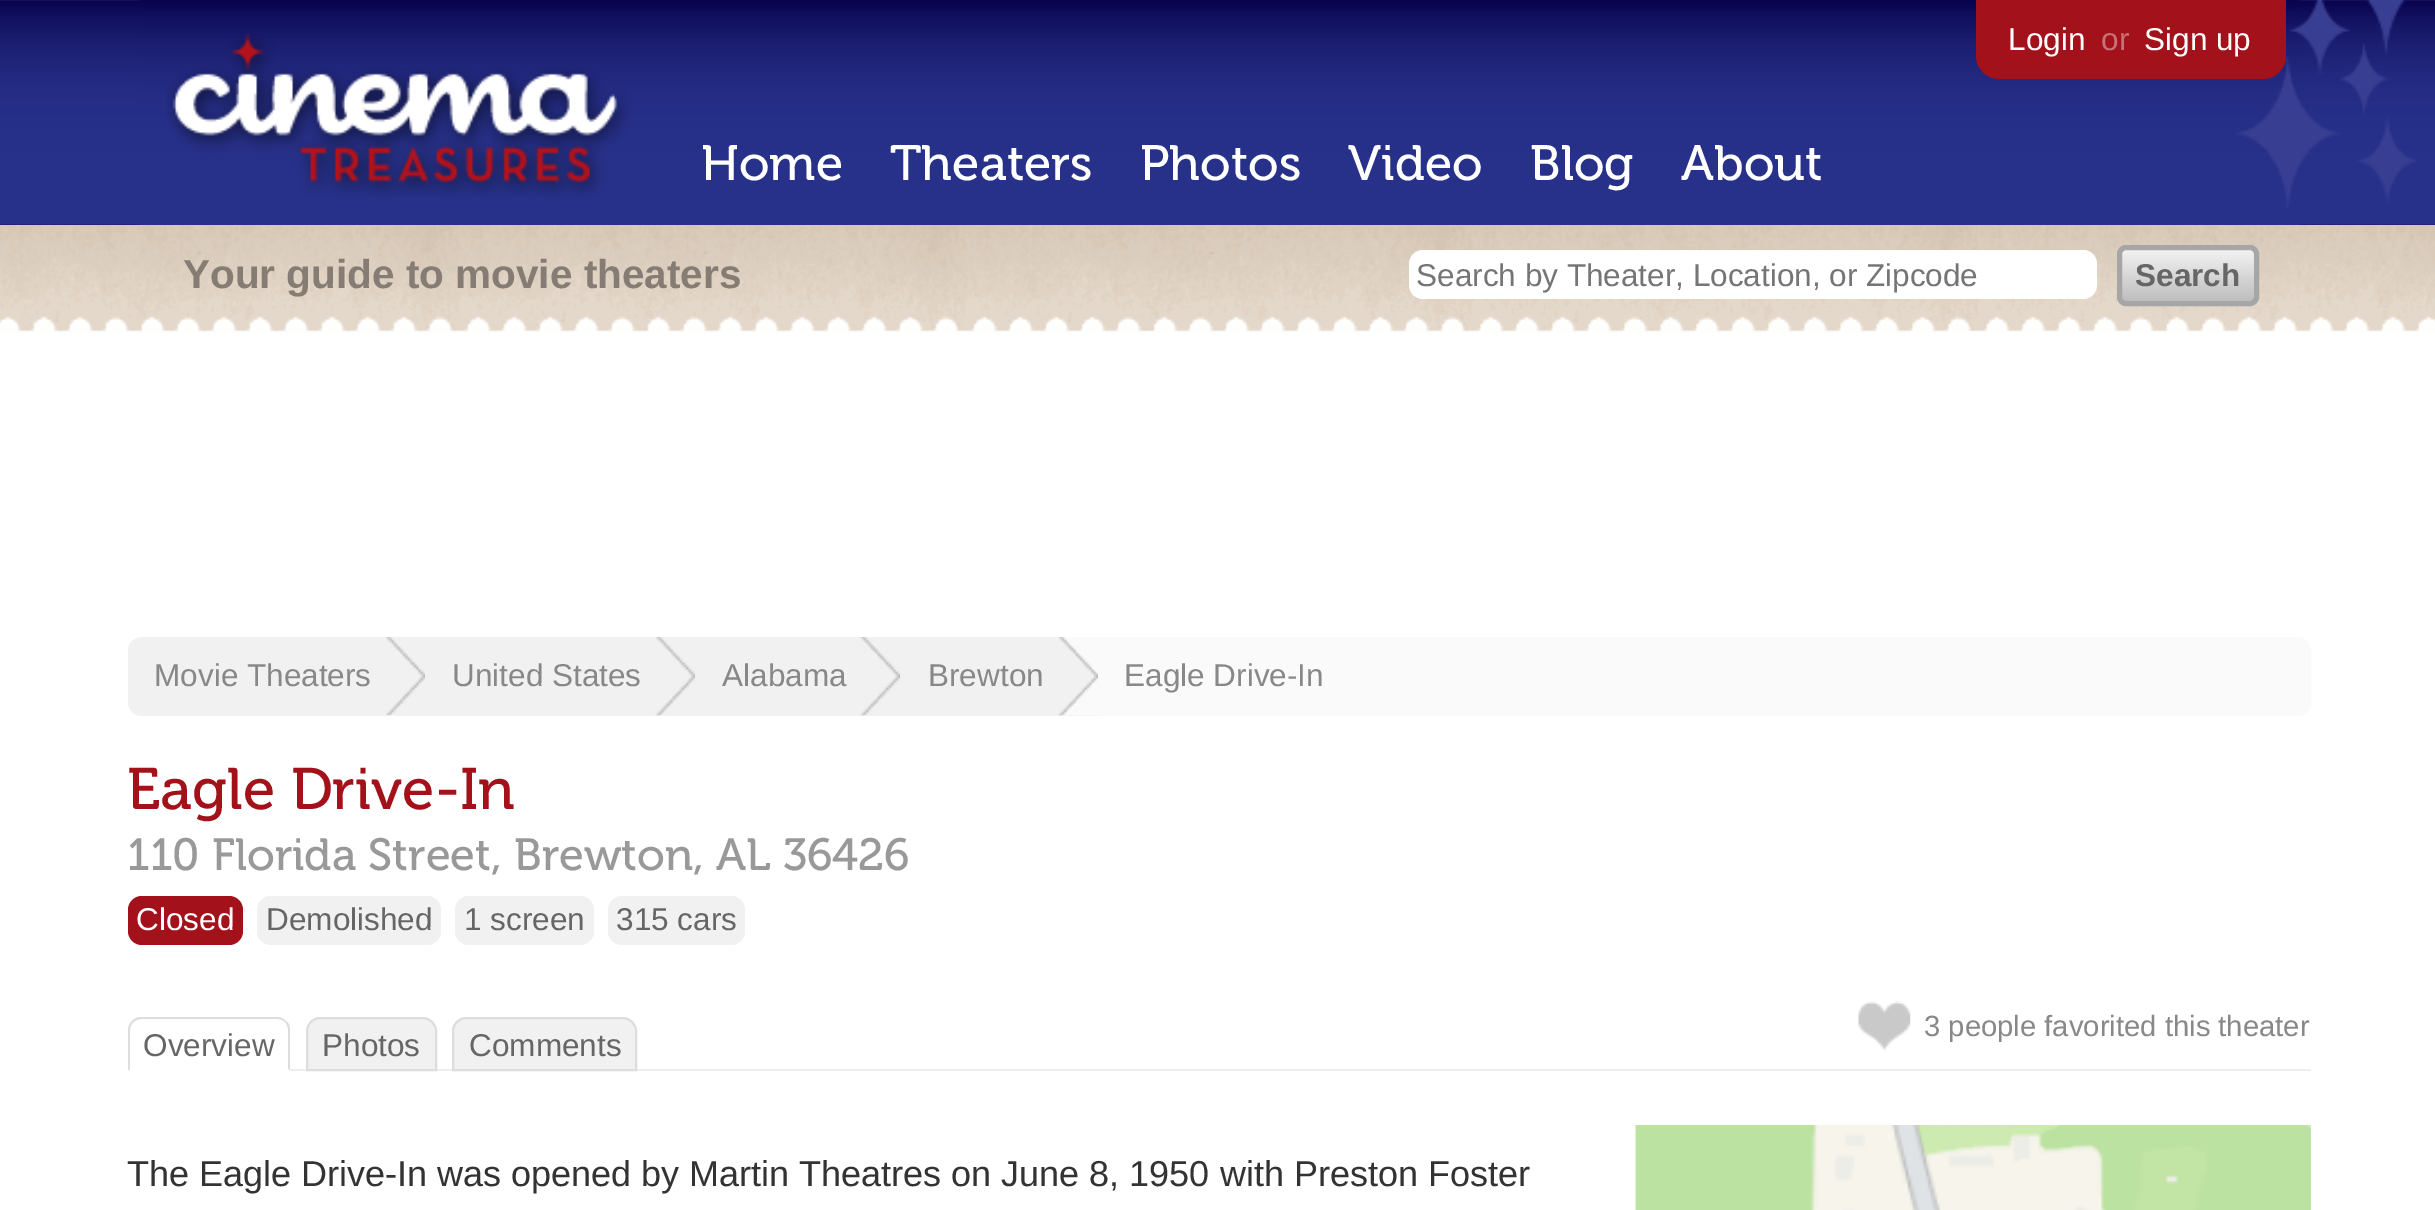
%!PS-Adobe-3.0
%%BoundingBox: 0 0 2435 1210
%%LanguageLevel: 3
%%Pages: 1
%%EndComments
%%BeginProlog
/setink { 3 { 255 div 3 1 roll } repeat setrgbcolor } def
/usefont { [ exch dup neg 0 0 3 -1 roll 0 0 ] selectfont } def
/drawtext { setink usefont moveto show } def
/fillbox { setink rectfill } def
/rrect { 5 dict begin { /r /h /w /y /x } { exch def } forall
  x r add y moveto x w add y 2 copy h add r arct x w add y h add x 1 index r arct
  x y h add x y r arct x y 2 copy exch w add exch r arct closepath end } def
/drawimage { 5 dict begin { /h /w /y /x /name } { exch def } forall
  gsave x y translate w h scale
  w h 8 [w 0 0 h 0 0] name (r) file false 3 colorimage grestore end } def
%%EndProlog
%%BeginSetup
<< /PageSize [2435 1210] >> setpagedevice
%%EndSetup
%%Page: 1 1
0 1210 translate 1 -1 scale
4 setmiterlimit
0 0 2435 1210 255 255 255 fillbox
(assets/img1.rgb) 0 0 2435 225 drawimage
(assets/img2.rgb) 139 0 2161 225 drawimage
(assets/img3.rgb) 166 33 464 165 drawimage
(Home) 701 180 /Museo-Regular 49.5 255 255 255 drawtext
(Theaters) 890 180 /Museo-Regular 49.5 255 255 255 drawtext
(Photos) 1140 180 /Museo-Regular 49.5 255 255 255 drawtext
(Video) 1348 180 /Museo-Regular 49.5 255 255 255 drawtext
(Blog) 1530 180 /Museo-Regular 49.5 255 255 255 drawtext
(About) 1681 180 /Museo-Regular 49.5 255 255 255 drawtext
(assets/img4.rgb) 2236 0 181 209 drawimage
163 18 27 setink
1976 0 moveto 2286 0 lineto 2286 56 lineto 2286 68.5 2275.5 79 2263 79 curveto 1999 79 lineto 1986.5 79 1976 68.5 1976 56 curveto closepath fill
(Login) 2008 50 /LiberationSans-Regular 31.5 255 255 255 drawtext
(or) 2101 50 /LiberationSans-Regular 31.5 200 113 118 drawtext
(Sign up) 2144 50 /LiberationSans-Regular 31.5 255 255 255 drawtext
(assets/img5.rgb) 0 225 2435 108 drawimage
(Your guide to movie theaters) 183 288 /LiberationSans-Bold 40.5 133 125 116 drawtext
255 255 255 setink
1409 250 688 49 14 rrect fill
(Search by Theater, Location, or Zipcode) 1416 286 /LiberationSans-Regular 31.5 117 117 117 drawtext
gsave 2122 250 133 52 5 rrect clip newpath
<< /ShadingType 2 /ColorSpace /DeviceRGB /Coords [2188 250 2188 302] /Extend [true true] /Function << /FunctionType 2 /Domain [0 1] /C0 [0.949 0.949 0.949] /C1 [0.741 0.741 0.741] /N 1 >> >> shfill grestore
166 166 166 setink
5 setlinewidth
2119.5 247.5 137 56 6.5 rrect stroke
(Search) 2135 286 /LiberationSans-Bold 31.5 102 102 102 drawtext
250 250 250 setink
128 637 2183 79 14 rrect fill
241 241 241 setink
142 637 moveto 425 637 lineto 425 716 lineto 142 716 lineto 134.5 716 128 709.5 128 702 curveto 128 651 lineto 128 643.5 134.5 637 142 637 curveto closepath fill
(assets/img6.rgb) 385 637 40 79 drawimage
(Movie Theaters) 154 686 /LiberationSans-Regular 31.5 136 136 136 drawtext
425 637 673 79 241 241 241 fillbox
(assets/img7.rgb) 655 636 40 80 drawimage
(United States) 452 686 /LiberationSans-Regular 31.5 136 136 136 drawtext
(assets/img8.rgb) 859 636 41 80 drawimage
(Alabama) 722 686 /LiberationSans-Regular 31.5 136 136 136 drawtext
(assets/img9.rgb) 1058 637 40 79 drawimage
(Brewton) 928 686 /LiberationSans-Regular 31.5 136 136 136 drawtext
(Eagle Drive-In) 1124 686 /LiberationSans-Regular 31.5 136 136 136 drawtext
(Eagle Drive-In) 127 809 /Museo-Regular 58.5 163 18 27 drawtext
(110 Florida Street, Brewton, AL 36426) 127 870 /Museo-Regular 45 153 153 153 drawtext
163 18 27 setink
128 896 115 49 14 rrect fill
(Closed) 136 930 /LiberationSans-Regular 31.5 255 255 255 drawtext
241 241 241 setink
257 896 184 49 14 rrect fill
(Demolished) 266 930 /LiberationSans-Regular 31.5 102 102 102 drawtext
241 241 241 setink
455 896 139 49 14 rrect fill
(1 screen) 464 930 /LiberationSans-Regular 31.5 102 102 102 drawtext
241 241 241 setink
608 896 137 49 14 rrect fill
(315 cars) 616 930 /LiberationSans-Regular 31.5 102 102 102 drawtext
290 1069 2021 2 238 238 238 fillbox
(Overview) 143 1056 /LiberationSans-Regular 31.5 102 102 102 drawtext
221 221 221 setink
142 1017 moveto 138 1017 135 1018 132 1021 curveto 134 1022 lineto 136 1020 139 1019 142 1019 curveto 277 1019 lineto 280 1019 283 1020 285 1022 curveto 286 1021 lineto 284 1019 281 1017 277 1017 curveto closepath fill
286 1021 moveto 289 1023 290 1027 290 1030 curveto 290 1071 lineto 288 1069 lineto 288 1030 lineto 288 1027 287 1024 285 1022 curveto closepath fill
255 255 255 setink
128 1071 moveto 290 1071 lineto 288 1069 lineto 130 1069 lineto closepath fill
221 221 221 setink
128 1071 moveto 128 1028 lineto 129 1025 130 1023 132 1021 curveto 134 1022 lineto 131 1024 130 1027 130 1030 curveto 130 1069 lineto closepath fill
241 241 241 setink
320 1018 moveto 423 1018 lineto 430 1018 436 1024 436 1031 curveto 436 1070 lineto 307 1070 lineto 307 1031 lineto 307 1024 313 1018 320 1018 curveto closepath gsave fill grestore
221 221 221 setink
2 setlinewidth
stroke
(Photos) 322 1056 /LiberationSans-Regular 31.5 102 102 102 drawtext
241 241 241 setink
466 1018 moveto 623 1018 lineto 630 1018 636 1024 636 1031 curveto 636 1070 lineto 453 1070 lineto 453 1031 lineto 453 1024 459 1018 466 1018 curveto closepath gsave fill grestore
221 221 221 setink
stroke
(Comments) 469 1056 /LiberationSans-Regular 31.5 102 102 102 drawtext
(assets/img10.rgb) 1858 1001 53 50 drawimage
(3 people favorited this theater) 1924 1036 /LiberationSans-Regular 29.25 136 136 136 drawtext
(The Eagle Drive-In was opened by Martin Theatres on June 8, 1950 with Preston Foster) 127 1186 /LiberationSans-Regular 36 51 51 51 drawtext
(assets/img11.rgb) 1635 1125 676 85 drawimage
(assets/img12.rgb) 1635 1125 676 85 drawimage
showpage
%%EOF
